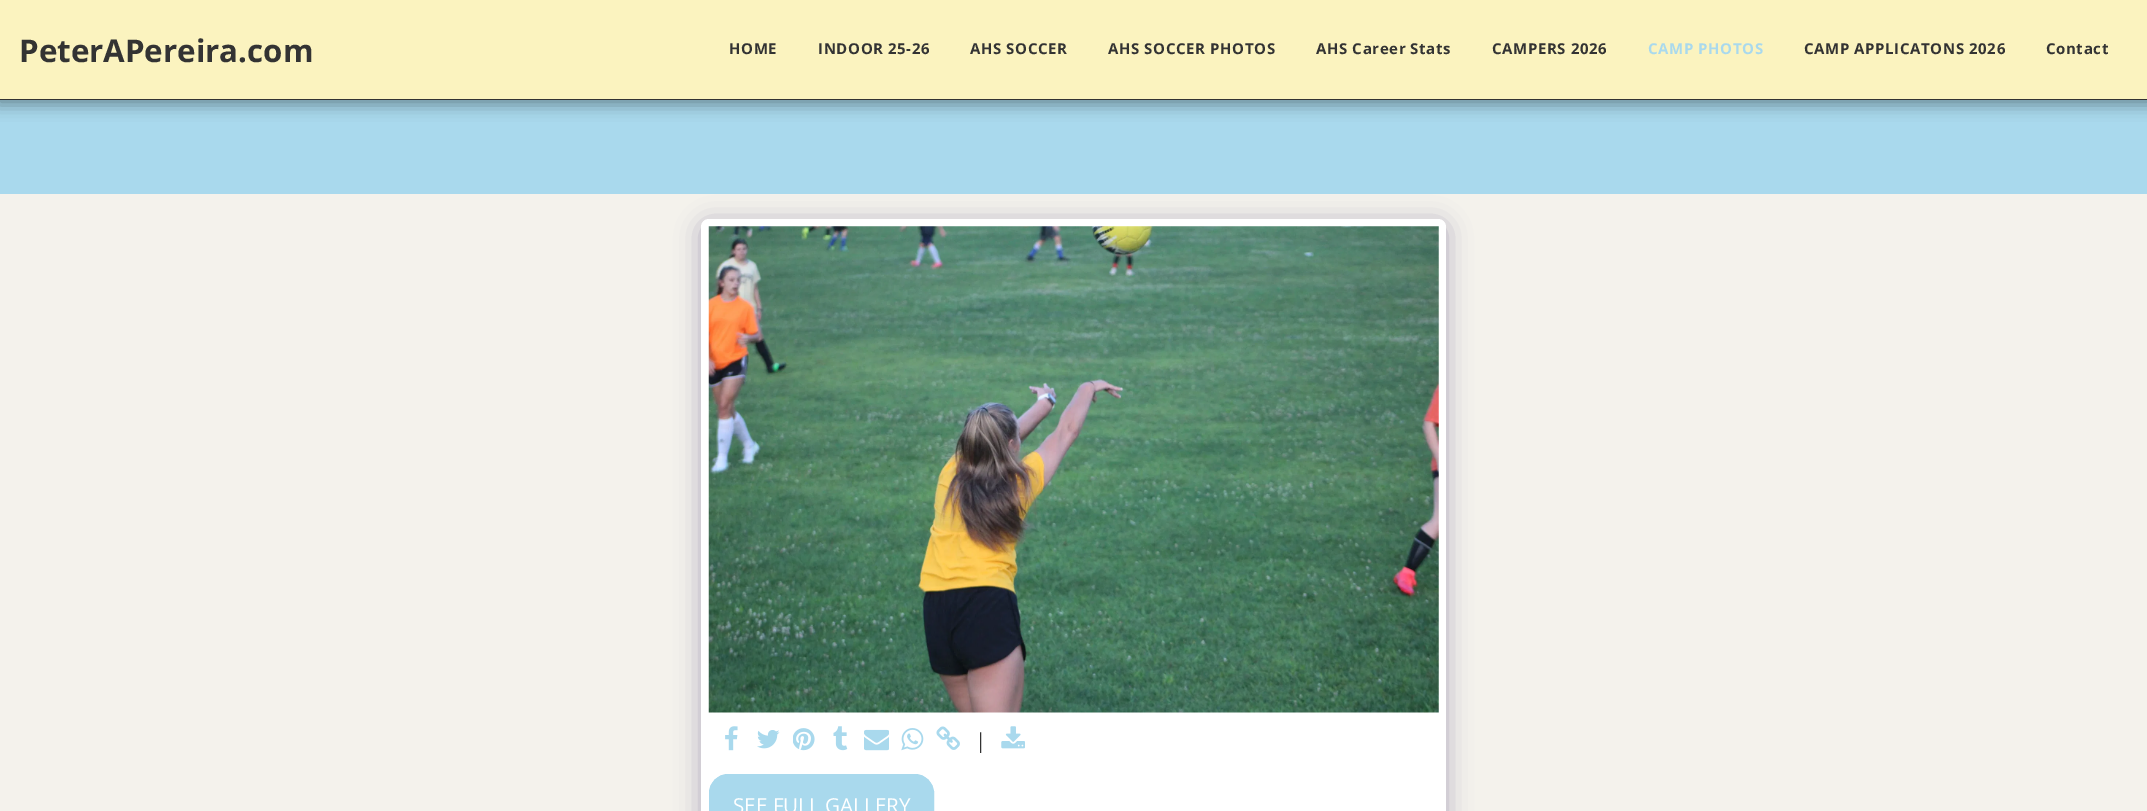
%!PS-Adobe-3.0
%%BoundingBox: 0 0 2147 811
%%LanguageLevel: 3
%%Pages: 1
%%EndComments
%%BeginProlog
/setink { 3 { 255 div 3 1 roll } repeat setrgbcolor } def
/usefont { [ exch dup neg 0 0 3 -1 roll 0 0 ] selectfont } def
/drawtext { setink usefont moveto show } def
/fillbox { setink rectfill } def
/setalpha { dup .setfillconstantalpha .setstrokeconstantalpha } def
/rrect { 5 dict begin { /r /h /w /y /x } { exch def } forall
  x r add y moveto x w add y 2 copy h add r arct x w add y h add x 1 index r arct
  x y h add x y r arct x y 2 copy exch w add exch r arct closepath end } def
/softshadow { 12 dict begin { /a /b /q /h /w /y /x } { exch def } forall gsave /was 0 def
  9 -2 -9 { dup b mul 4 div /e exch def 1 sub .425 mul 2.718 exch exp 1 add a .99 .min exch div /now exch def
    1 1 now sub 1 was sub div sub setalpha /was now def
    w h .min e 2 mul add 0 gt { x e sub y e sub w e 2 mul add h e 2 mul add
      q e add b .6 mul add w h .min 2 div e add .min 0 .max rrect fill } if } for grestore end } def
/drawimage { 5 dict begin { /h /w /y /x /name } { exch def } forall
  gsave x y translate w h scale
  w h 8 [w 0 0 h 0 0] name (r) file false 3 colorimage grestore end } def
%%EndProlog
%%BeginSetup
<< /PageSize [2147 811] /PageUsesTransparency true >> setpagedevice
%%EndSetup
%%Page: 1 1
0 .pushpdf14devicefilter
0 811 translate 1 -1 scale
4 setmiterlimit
0 0 2147 811 244 242 236 fillbox
0 100 2147 94 169 217 237 fillbox
0 0 0 setink
-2 0 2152 105 0 7.5 0.35 softshadow
0 0 2147 99 251 243 191 fillbox
0 99 2147 1 51 51 51 fillbox
(PeterAPereira.com) 19 62 /OpenSans-Bold 31.25 51 51 51 drawtext
/OpenSans-Bold 15 usefont
729 54 moveto 0.6 0 (HOME) ashow
818 54 moveto 0.6 0 (INDOOR 25-26) ashow
970 54 moveto 0.6 0 (AHS SOCCER) ashow
1108 54 moveto 0.6 0 (AHS SOCCER PHOTOS) ashow
1316 54 moveto 0.6 0 (AHS Career Stats) ashow
1492 54 moveto 0.6 0 (CAMPERS 2026) ashow
169 217 237 setink
1648 54 moveto 0.6 0 (CAMP PHOTOS) ashow
51 51 51 setink
1804 54 moveto 0.6 0 (CAMP APPLICATONS 2026) ashow
2046 54 moveto 0.6 0 (Contact) ashow
77 63 122 setink
701 223 745 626 8 12.5 0.4 softshadow
255 255 255 setink
701 219 745 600 8 rrect fill
(assets/img1.rgb) 708 226 731 487 drawimage
(assets/img2.rgb) 725 726 13 25 drawimage
(assets/img3.rgb) 757 730 23 19 drawimage
(assets/img4.rgb) 793 728 22 23 drawimage
(assets/img5.rgb) 833 726 15 25 drawimage
(assets/img6.rgb) 864 729 25 22 drawimage
(assets/img7.rgb) 901 728 23 23 drawimage
(assets/img8.rgb) 936 726 24 24 drawimage
(|) 975 748 /OpenSans-Regular 20.6 51 51 51 drawtext
(assets/img9.rgb) 1001 726 24 23 drawimage
169 217 237 setink
709.5 774.5 224 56 18.5 rrect gsave fill grestore
stroke
(SEE FULL GALLERY) 733 813 /OpenSans-Regular 20.6 255 255 255 drawtext
.poppdf14devicefilter showpage
%%EOF
